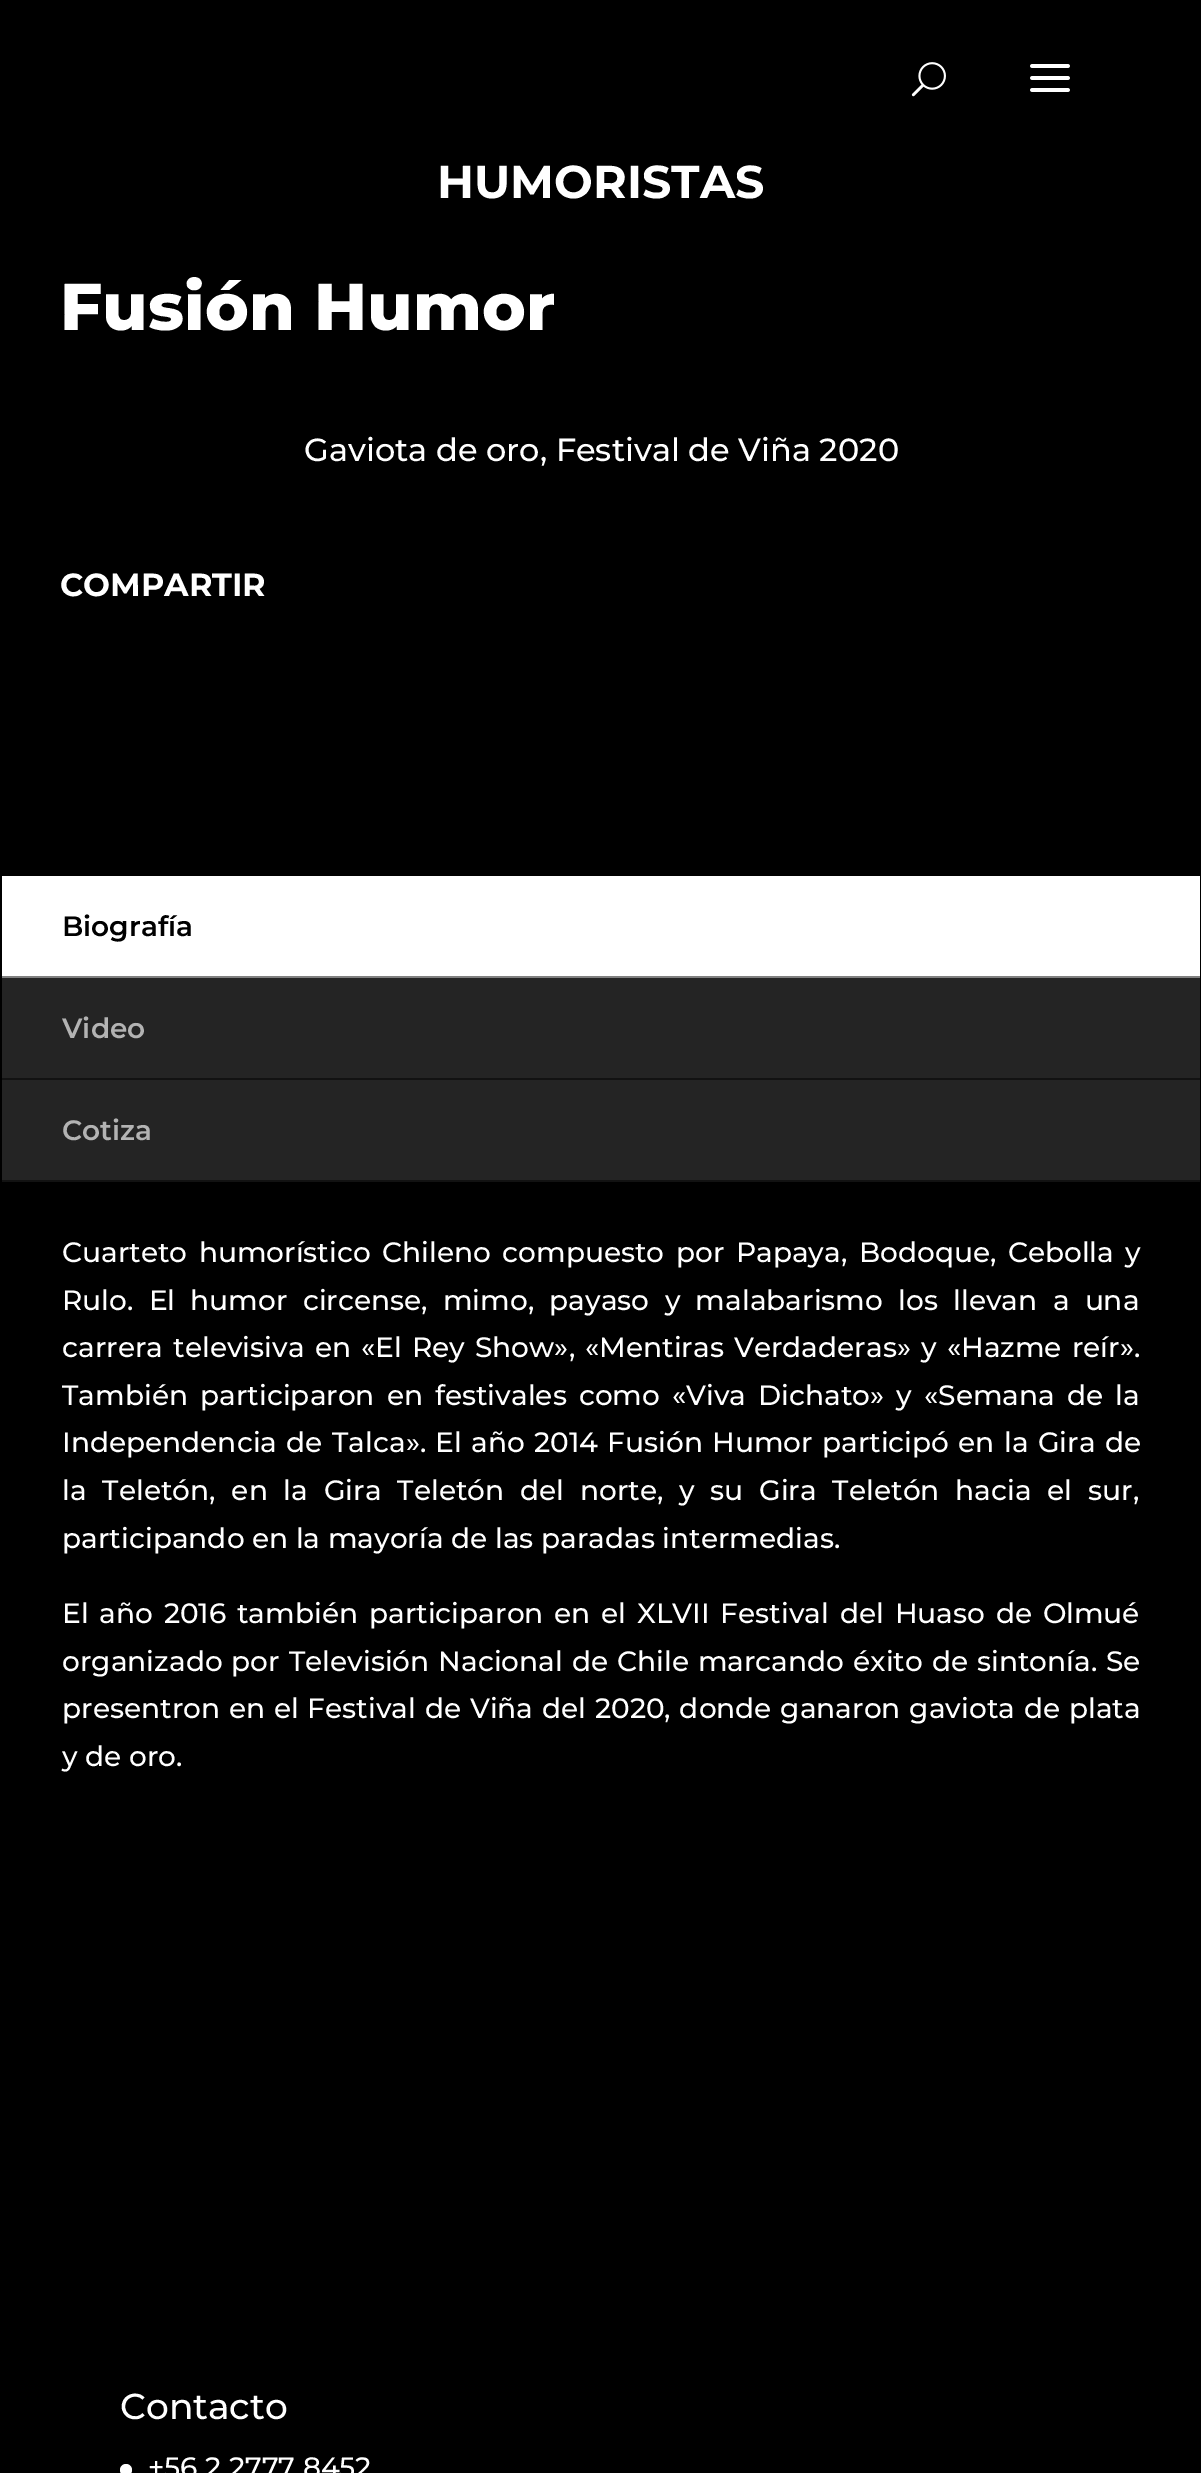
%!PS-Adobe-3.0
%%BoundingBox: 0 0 1201 2473
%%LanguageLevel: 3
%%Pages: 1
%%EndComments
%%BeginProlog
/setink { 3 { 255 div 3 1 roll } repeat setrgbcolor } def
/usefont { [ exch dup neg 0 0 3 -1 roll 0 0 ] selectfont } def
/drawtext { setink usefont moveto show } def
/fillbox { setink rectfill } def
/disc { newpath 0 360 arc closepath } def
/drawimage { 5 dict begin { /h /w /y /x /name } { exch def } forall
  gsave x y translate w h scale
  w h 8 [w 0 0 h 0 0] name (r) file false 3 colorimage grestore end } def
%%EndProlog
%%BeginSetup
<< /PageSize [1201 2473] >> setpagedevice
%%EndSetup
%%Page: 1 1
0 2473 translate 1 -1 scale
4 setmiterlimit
0 0 1201 2473 0 0 0 fillbox
(assets/img1.rgb) 911 62 35 35 drawimage
(assets/img2.rgb) 1030 64 40 28 drawimage
(HUMORISTAS) 437 198 /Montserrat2-Thin 46 255 255 255 drawtext
(Fusión Humor) 60 330 /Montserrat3-Thin 66 255 255 255 drawtext
(Gaviota de oro, Festival de Viña 2020) 304 461 /Montserrat-Thin 32 255 255 255 drawtext
(COMPARTIR) 60 596 /Montserrat2-Thin 32 255 255 255 drawtext
2 876 1198 100 255 255 255 fillbox
2 976 1198 2 128 128 128 fillbox
(Biografía) 62 936 /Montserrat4-Thin 28 0 0 0 drawtext
2 978 1198 100 36 36 36 fillbox
2 1078 1198 2 18 18 18 fillbox
(Video) 62 1038 /Montserrat4-Thin 28 179 179 179 drawtext
2 1080 1198 100 36 36 36 fillbox
2 1180 1198 2 18 18 18 fillbox
(Cotiza) 62 1140 /Montserrat4-Thin 28 179 179 179 drawtext
/Montserrat-Thin 28 usefont
255 255 255 setink
62 1262 moveto 4 0 32 (Cuarteto humorístico Chileno compuesto por Papaya, Bodoque, Cebolla y) widthshow
62 1310 moveto 7.75 0 32 (Rulo. El humor circense, mimo, payaso y malabarismo los llevan a una) widthshow
62 1357 moveto 2.6 0 32 (carrera televisiva en «El Rey Show», «Mentiras Verdaderas» y «Hazme reír».) widthshow
62 1405 moveto 4.5 0 32 (También participaron en festivales como «Viva Dichato» y «Semana de la) widthshow
62 1452 moveto 1.75 0 32 (Independencia de Talca». El año 2014 Fusión Humor participó en la Gira de) widthshow
62 1500 moveto 8.25 0 32 (la Teletón, en la Gira Teletón del norte, y su Gira Teletón hacia el sur,) widthshow
(participando en la mayoría de las paradas intermedias.) 62 1548 /Montserrat-Thin 28 255 255 255 drawtext
62 1623 moveto 3.25 0 32 (El año 2016 también participaron en el XLVII Festival del Huaso de Olmué) widthshow
62 1671 moveto 1.4 0 32 (organizado por Televisión Nacional de Chile marcando éxito de sintonía. Se) widthshow
62 1718 moveto 1.25 0 32 (presentron en el Festival de Viña del 2020, donde ganaron gaviota de plata) widthshow
(y de oro.) 62 1766 /Montserrat-Thin 28 255 255 255 drawtext
(Contacto) 120 2419 /Montserrat-Thin 36 255 255 255 drawtext
126 2470 6 disc fill
(+56 2 2777 8452) 148 2477 /Montserrat-Thin 28 255 255 255 drawtext
showpage
%%EOF
